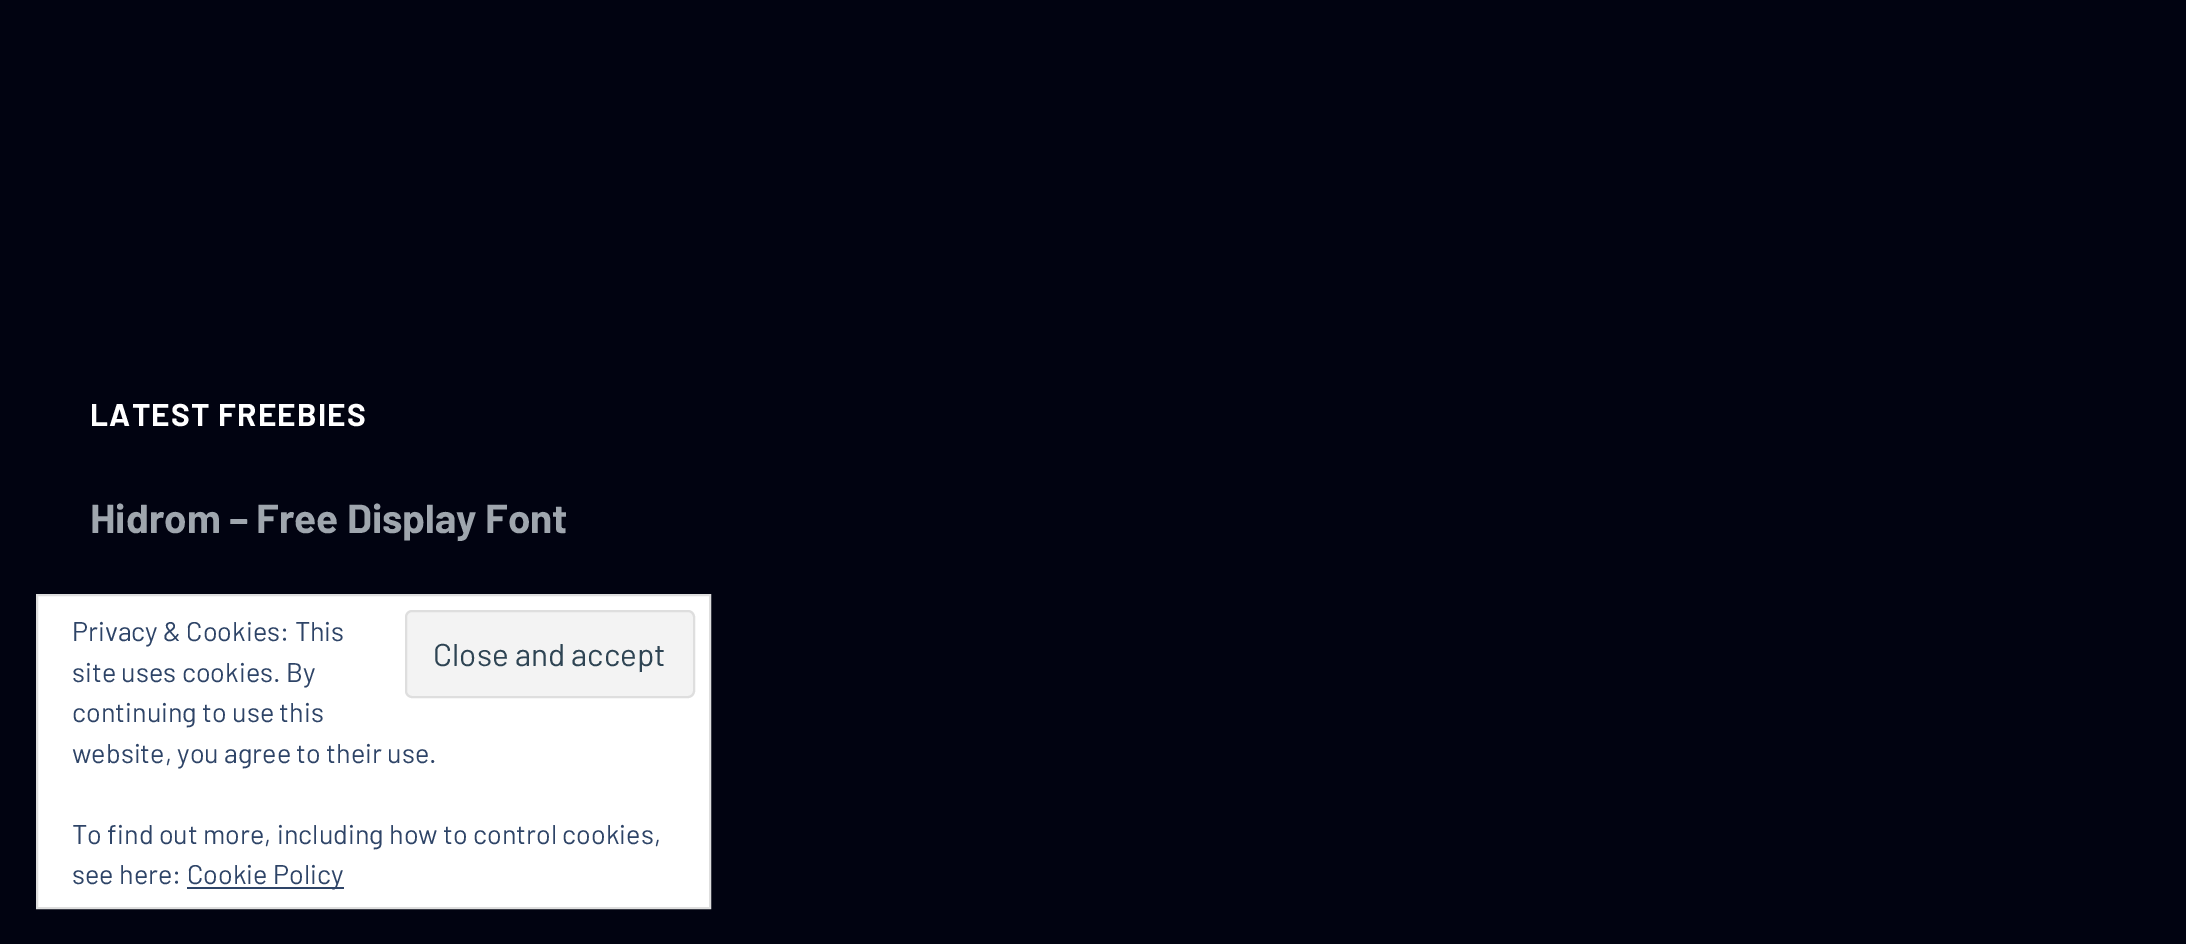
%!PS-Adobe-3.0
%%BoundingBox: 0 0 2186 944
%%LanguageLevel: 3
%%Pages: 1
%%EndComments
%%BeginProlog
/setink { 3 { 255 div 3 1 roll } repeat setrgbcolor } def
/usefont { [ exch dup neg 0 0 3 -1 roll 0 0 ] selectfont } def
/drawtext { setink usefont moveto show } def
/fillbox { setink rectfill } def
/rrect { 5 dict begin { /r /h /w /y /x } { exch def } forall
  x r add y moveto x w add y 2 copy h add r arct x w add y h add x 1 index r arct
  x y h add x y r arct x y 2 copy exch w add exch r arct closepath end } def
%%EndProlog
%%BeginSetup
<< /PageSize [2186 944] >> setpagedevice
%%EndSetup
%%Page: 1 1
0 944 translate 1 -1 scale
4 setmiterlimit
0 0 2186 944 1 3 17 fillbox
/Barlow-Bold 31.5 usefont
255 255 255 setink
90 426 moveto 1.25 0 (LATEST FREEBIES) ashow
(Hidrom – Free Display Font) 90 533 /Barlow-Bold 40.5 159 166 174 drawtext
255 255 255 setink
37 595 moveto 710 595 lineto 710 908 lineto 37 908 lineto closepath gsave fill grestore
222 222 222 setink
2 setlinewidth
stroke
(Privacy & Cookies: This) 72 641 /Barlow-Regular 27 46 68 103 drawtext
(site uses cookies. By) 72 682 /Barlow-Regular 27 46 68 103 drawtext
243 243 243 setink
406 611 288 86 6 rrect gsave fill grestore
222 222 222 setink
stroke
(Close and accept) 433 666 /Barlow-Regular 31.5 46 68 83 drawtext
(continuing to use this) 72 722 /Barlow-Regular 27 46 68 103 drawtext
(website, you agree to their use.) 72 763 /Barlow-Regular 27 46 68 103 drawtext
(To find out more, including how to control cookies,) 72 844 /Barlow-Regular 27 46 68 103 drawtext
(see here:) 72 884 /Barlow-Regular 27 46 68 103 drawtext
187 887 157 2 46 68 103 fillbox
(Cookie Policy) 187 884 /Barlow-Regular 27 46 68 103 drawtext
showpage
%%EOF
